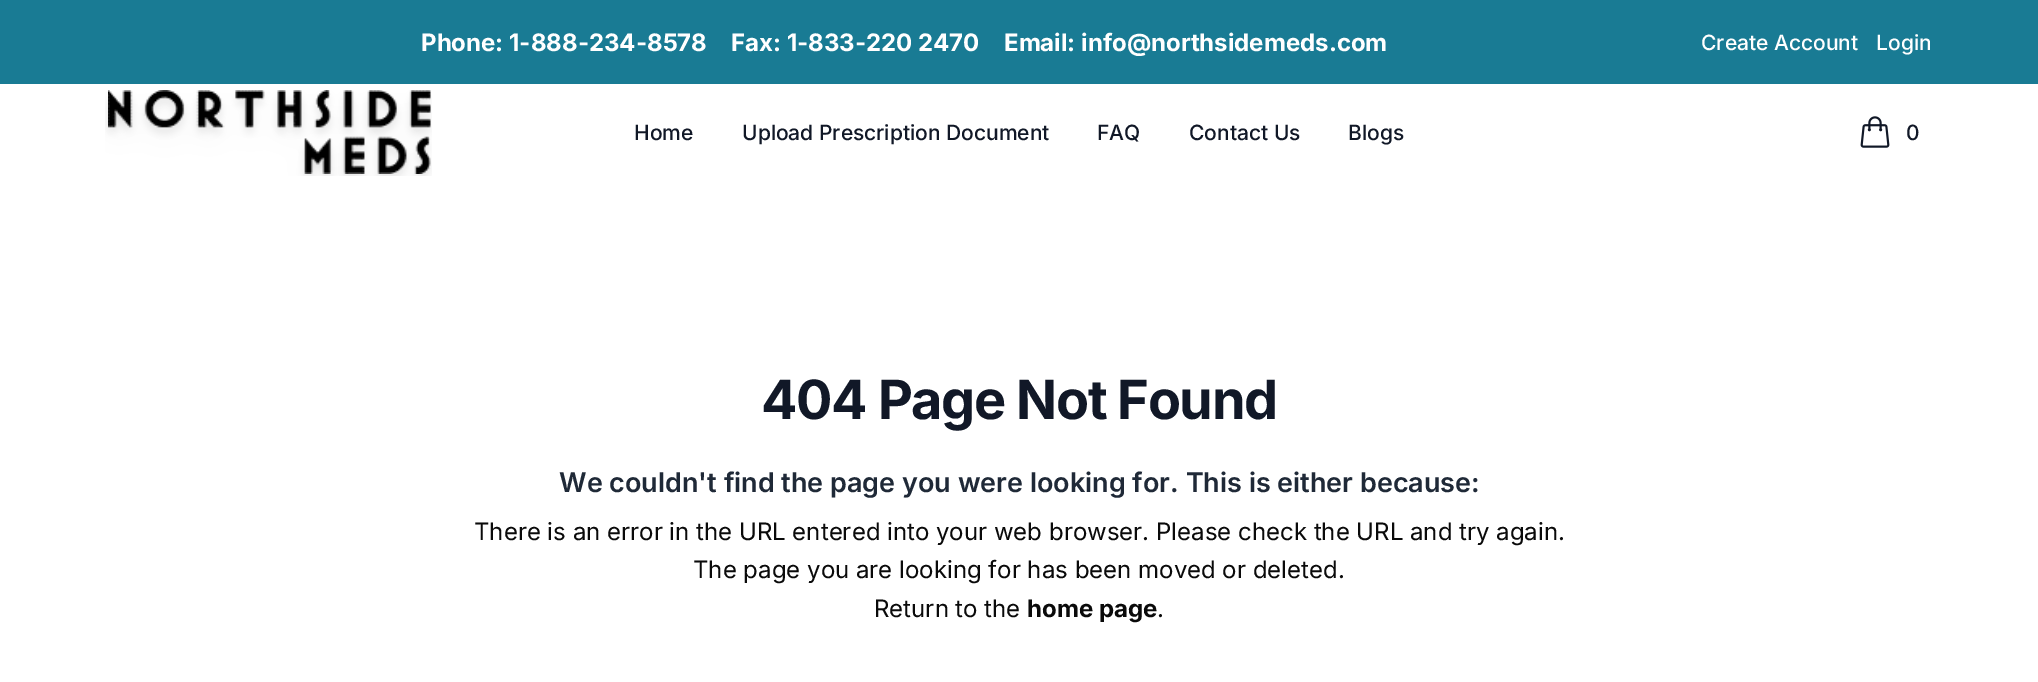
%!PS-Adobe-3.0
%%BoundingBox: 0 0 2038 682
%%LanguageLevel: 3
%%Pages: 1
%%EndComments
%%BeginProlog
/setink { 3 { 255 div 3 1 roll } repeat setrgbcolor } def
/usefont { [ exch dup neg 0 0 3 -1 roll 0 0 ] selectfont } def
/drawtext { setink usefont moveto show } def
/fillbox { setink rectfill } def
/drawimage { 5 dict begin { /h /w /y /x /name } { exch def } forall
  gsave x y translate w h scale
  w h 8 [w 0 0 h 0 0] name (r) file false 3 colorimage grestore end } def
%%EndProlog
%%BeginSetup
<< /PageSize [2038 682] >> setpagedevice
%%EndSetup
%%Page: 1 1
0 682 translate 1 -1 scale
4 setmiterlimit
0 0 2038 682 255 255 255 fillbox
0 0 2038 84 25 123 148 fillbox
(Phone: 1-888-234-8578) 421 51 /Inter-Bold 24 255 255 255 drawtext
(Fax: 1-833-220 2470) 731 51 /Inter-Bold 24 255 255 255 drawtext
(Email: info@northsidemeds.com) 1004 51 /Inter-Bold 24 255 255 255 drawtext
(Create Account) 1701 50 /Inter-Medium 21 255 255 255 drawtext
(Login) 1876 50 /Inter-Medium 21 255 255 255 drawtext
(assets/img1.rgb) 105 90 327 86 drawimage
(Home) 634 140 /Inter-Medium 21 17 24 39 drawtext
(Upload Prescription Document) 742 140 /Inter-Medium 21 17 24 39 drawtext
(FAQ) 1097 140 /Inter-Medium 21 17 24 39 drawtext
(Contact Us) 1189 140 /Inter-Medium 21 17 24 39 drawtext
(Blogs) 1348 140 /Inter-Medium 21 17 24 39 drawtext
(assets/img2.rgb) 1860 116 30 32 drawimage
(0) 1906 140 /Inter-Medium 21 17 24 39 drawtext
/Inter-Bold 54 usefont
761 419 moveto -1.4 0 (404 Page Not Found) ashow
(We couldn't find the page you were looking for. This is either because:) 559 492 /Inter-SemiBold 27 31 41 55 drawtext
(There is an error in the URL entered into your web browser. Please check the URL and try again.) 474 540 /Inter-Regular 24 10 10 10 drawtext
(The page you are looking for has been moved or deleted.) 693 578 /Inter-Regular 24 10 10 10 drawtext
(Return to the) 874 617 /Inter-Regular 24 10 10 10 drawtext
(home page) 1027 617 /Inter-Bold 24 10 10 10 drawtext
(.) 1157 617 /Inter-Regular 24 10 10 10 drawtext
showpage
%%EOF
